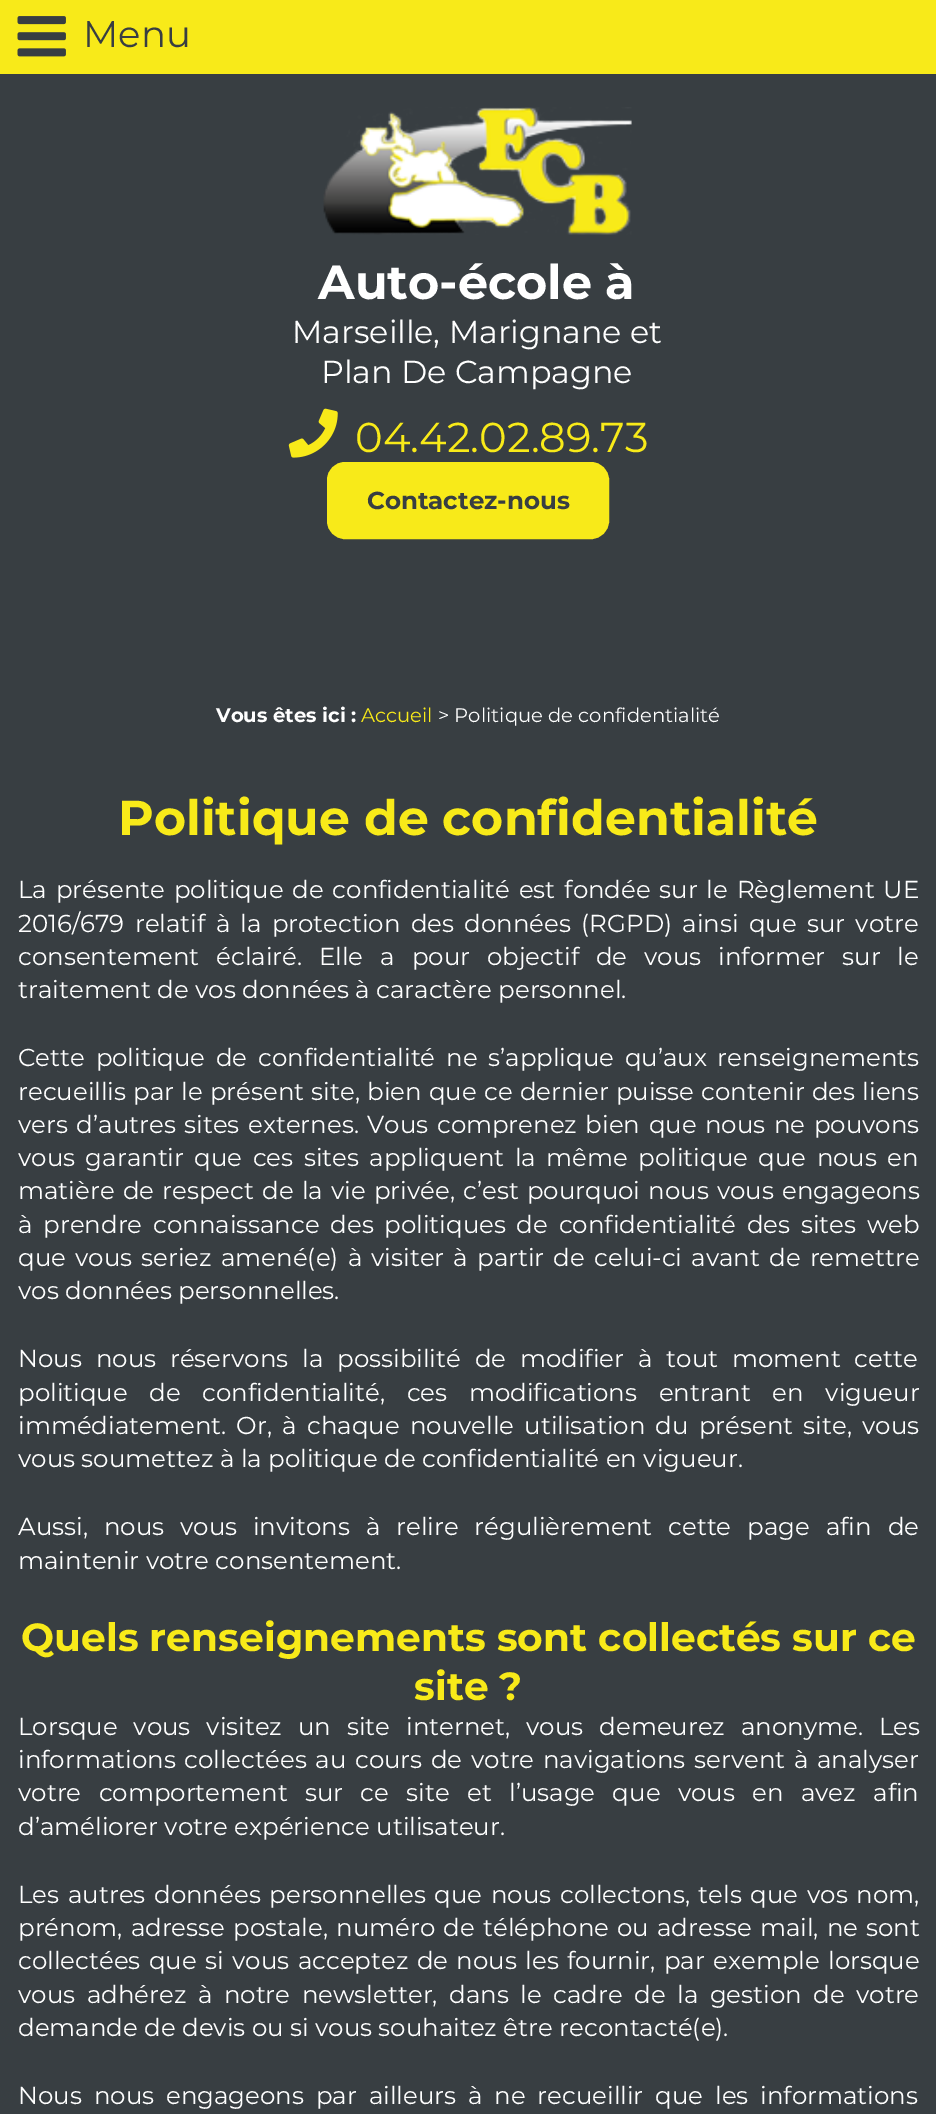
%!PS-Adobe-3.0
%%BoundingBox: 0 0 936 2114
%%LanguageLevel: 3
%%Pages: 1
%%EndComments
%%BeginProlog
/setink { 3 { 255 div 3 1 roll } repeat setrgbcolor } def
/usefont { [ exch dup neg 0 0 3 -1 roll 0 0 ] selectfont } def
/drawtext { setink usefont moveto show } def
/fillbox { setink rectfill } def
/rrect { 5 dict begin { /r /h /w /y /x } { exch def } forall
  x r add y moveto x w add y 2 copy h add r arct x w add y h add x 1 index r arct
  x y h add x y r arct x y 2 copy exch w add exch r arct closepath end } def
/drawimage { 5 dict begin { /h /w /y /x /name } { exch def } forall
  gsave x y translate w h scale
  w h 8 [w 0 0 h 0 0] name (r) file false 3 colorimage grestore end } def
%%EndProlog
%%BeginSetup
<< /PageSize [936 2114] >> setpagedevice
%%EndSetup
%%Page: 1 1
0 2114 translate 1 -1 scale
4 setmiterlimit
0 0 936 2114 56 62 66 fillbox
0 0 936 74 248 234 25 fillbox
(assets/img1.rgb) 17 16 49 41 drawimage
(Menu) 83 47 /Montserrat-Regular 37 56 62 66 drawtext
(assets/img2.rgb) 323 107 309 128 drawimage
(Auto-école à) 318 299 /Montserrat-Bold 47.75 255 255 255 drawtext
(Marseille, Marignane et) 292 343 /Montserrat-Regular 31.8 255 255 255 drawtext
(Plan De Campagne) 321 383 /Montserrat-Regular 31.8 255 255 255 drawtext
(assets/img3.rgb) 288 408 50 50 drawimage
(04.42.02.89.73) 355 452 /Montserrat-Regular 41.75 248 234 25 drawtext
328 463 280 75 17 rrect gsave fill grestore
2 setlinewidth
stroke
(Contactez-nous) 367 509 /Montserrat-Bold 24.5 56 62 66 drawtext
(Vous êtes ici :) 216 722 /Montserrat-Bold 19.6 255 255 255 drawtext
(Accueil) 361 722 /Montserrat-Regular 19.6 248 234 25 drawtext
(> Politique de confidentialité) 438 722 /Montserrat-Regular 19.6 255 255 255 drawtext
(Politique de confidentialité) 118 835 /Montserrat-Bold 49 248 234 25 drawtext
/Montserrat-Regular 24.5 usefont
255 255 255 setink
18 898 moveto 2.4 0 32 (La présente politique de confidentialité est fondée sur le Règlement UE) widthshow
18 932 moveto 3.9 0 32 (2016/679 relatif à la protection des données \(RGPD\) ainsi que sur votre) widthshow
18 965 moveto 10.5 0 32 (consentement éclairé. Elle a pour objectif de vous informer sur le) widthshow
(traitement de vos données à caractère personnel.) 18 998 /Montserrat-Regular 24.5 255 255 255 drawtext
18 1066 moveto 4.25 0 32 (Cette politique de confidentialité ne s’applique qu’aux renseignements) widthshow
18 1100 moveto 0.75 0 32 (recueillis par le présent site, bien que ce dernier puisse contenir des liens) widthshow
18 1133 moveto 2.1 0 32 (vers d’autres sites externes. Vous comprenez bien que nous ne pouvons) widthshow
18 1166 moveto 4 0 32 (vous garantir que ces sites appliquent la même politique que nous en) widthshow
18 1199 moveto 1.75 0 32 (matière de respect de la vie privée, c’est pourquoi nous vous engageons) widthshow
18 1233 moveto 4.25 0 32 (à prendre connaissance des politiques de confidentialité des sites web) widthshow
18 1266 moveto 2.75 0 32 (que vous seriez amené\(e\) à visiter à partir de celui-ci avant de remettre) widthshow
(vos données personnelles.) 18 1299 /Montserrat-Regular 24.5 255 255 255 drawtext
18 1367 moveto 7.5 0 32 (Nous nous réservons la possibilité de modifier à tout moment cette) widthshow
18 1401 moveto 15.25 0 32 (politique de confidentialité, ces modifications entrant en vigueur) widthshow
18 1434 moveto 3.75 0 32 (immédiatement. Or, à chaque nouvelle utilisation du présent site, vous) widthshow
(vous soumettez à la politique de confidentialité en vigueur.) 18 1467 /Montserrat-Regular 24.5 255 255 255 drawtext
18 1535 moveto 9.5 0 32 (Aussi, nous vous invitons à relire régulièrement cette page afin de) widthshow
(maintenir votre consentement.) 18 1569 /Montserrat-Regular 24.5 255 255 255 drawtext
(Quels renseignements sont collectés sur ce) 21 1651 /Montserrat-Bold 39.2 248 234 25 drawtext
(site ?) 414 1700 /Montserrat-Bold 39.2 248 234 25 drawtext
/Montserrat-Regular 24.5 usefont
255 255 255 setink
18 1735 moveto 9.5 0 32 (Lorsque vous visitez un site internet, vous demeurez anonyme. Les) widthshow
18 1768 moveto 2.25 0 32 (informations collectées au cours de votre navigations servent à analyser) widthshow
18 1801 moveto 10.9 0 32 (votre comportement sur ce site et l’usage que vous en avez afin) widthshow
(d’améliorer votre expérience utilisateur.) 18 1835 /Montserrat-Regular 24.5 255 255 255 drawtext
18 1903 moveto 2.25 0 32 (Les autres données personnelles que nous collectons, tels que vos nom,) widthshow
18 1936 moveto 1.75 0 32 (prénom, adresse postale, numéro de téléphone ou adresse mail, ne sont) widthshow
18 1969 moveto 2 0 32 (collectées que si vous acceptez de nous les fournir, par exemple lorsque) widthshow
18 2003 moveto 5.1 0 32 (vous adhérez à notre newsletter, dans le cadre de la gestion de votre) widthshow
(demande de devis ou si vous souhaitez être recontacté\(e\).) 18 2036 /Montserrat-Regular 24.5 255 255 255 drawtext
18 2104 moveto 5.5 0 32 (Nous nous engageons par ailleurs à ne recueillir que les informations) widthshow
showpage
%%EOF
